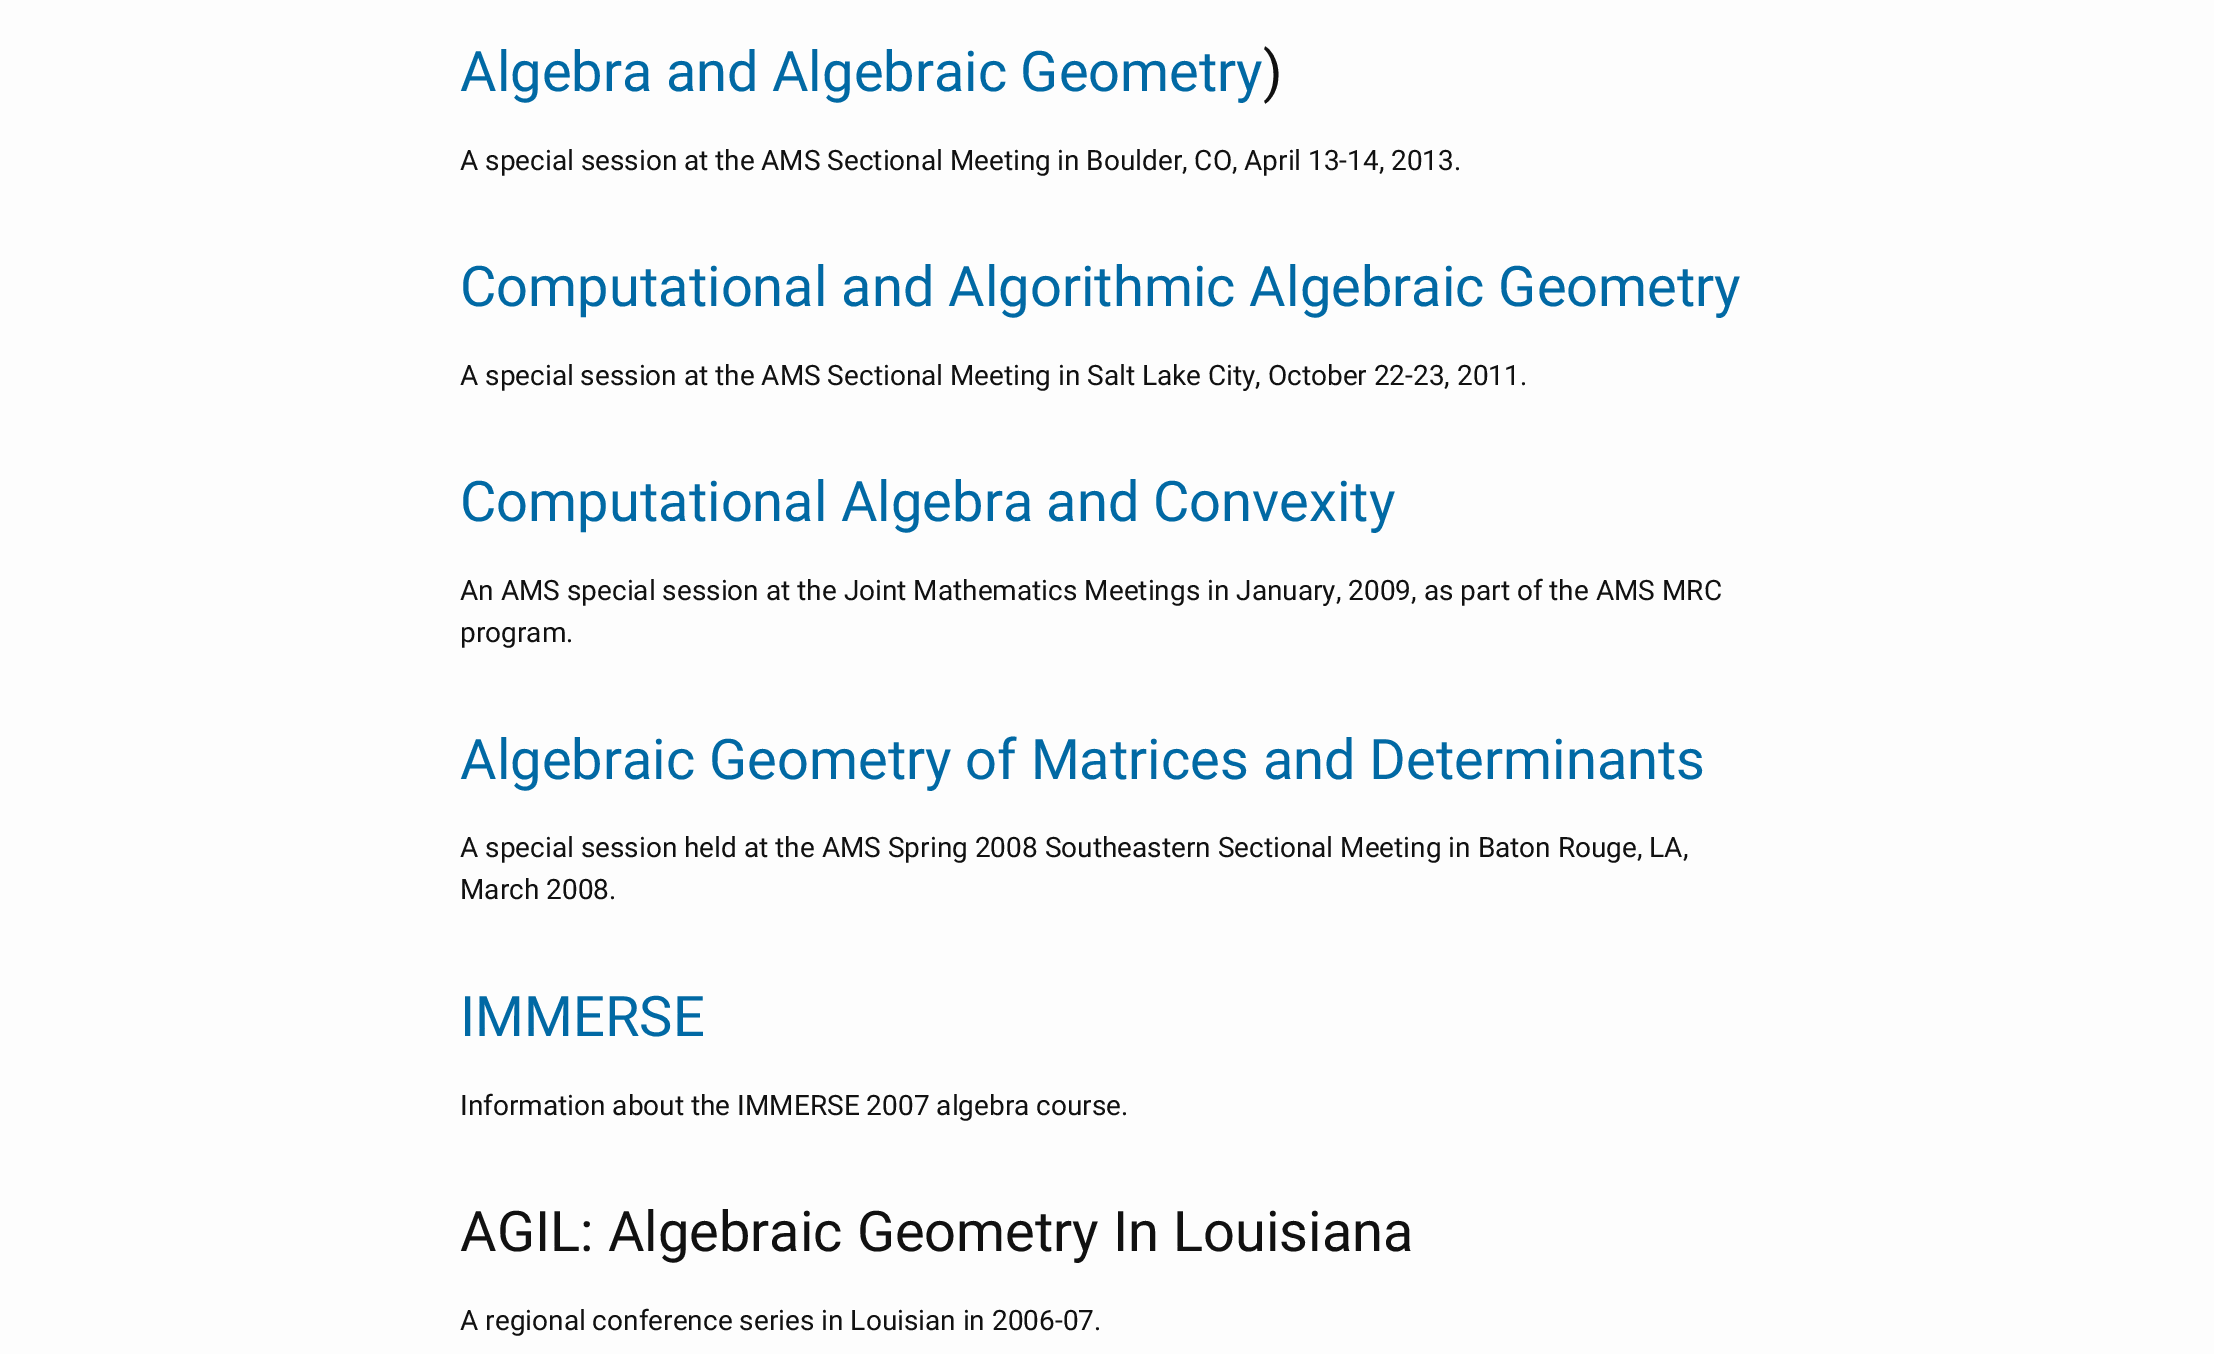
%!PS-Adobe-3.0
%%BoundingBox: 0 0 2214 1354
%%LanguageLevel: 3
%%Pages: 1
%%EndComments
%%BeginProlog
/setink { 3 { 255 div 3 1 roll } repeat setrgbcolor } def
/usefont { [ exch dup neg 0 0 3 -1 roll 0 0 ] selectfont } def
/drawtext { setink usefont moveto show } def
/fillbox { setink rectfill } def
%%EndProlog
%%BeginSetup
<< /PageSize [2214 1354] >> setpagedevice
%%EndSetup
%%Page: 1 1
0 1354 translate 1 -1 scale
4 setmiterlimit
0 0 2214 1354 253 253 253 fillbox
/Roboto-Regular 56 usefont
1 105 164 setink
460 91 moveto -0.5 0 32 (Algebra and Algebraic Geometry) widthshow
(\)) 1263 91 /Roboto-Regular 56 17 17 17 drawtext
(A special session) 460 170 /Roboto-Regular 28 17 17 17 drawtext
684 170 moveto -0.25 0 32 (at the AMS Sectional Meeting in Boulder, CO, April 13-14, 2013.) widthshow
(Computational and Algorithmic Algebraic Geometry) 460 306 /Roboto-Regular 56 1 105 164 drawtext
/Roboto-Regular 28 usefont
17 17 17 setink
460 385 moveto -0.1 0 32 (A special session at the AMS Sectional Meeting in Salt Lake City, October 22-23, 2011.) widthshow
/Roboto-Regular 56 usefont
1 105 164 setink
460 521 moveto -0.5 0 32 (Computational Algebra and Convexity) widthshow
(An AMS special session at the Joint Mathematics Meetings in January, 2009, as part of the AMS MRC) 460 600 /Roboto-Regular 28 17 17 17 drawtext
(program.) 460 642 /Roboto-Regular 28 17 17 17 drawtext
(Algebraic Geometry of Matrices and Determinants) 460 779 /Roboto-Regular 56 1 105 164 drawtext
(A special session held at the AMS Spring 2008 Southeastern Sectional Meeting in Baton Rouge, LA,) 460 857 /Roboto-Regular 28 17 17 17 drawtext
(March 2008.) 460 899 /Roboto-Regular 28 17 17 17 drawtext
(IMMERSE) 460 1036 /Roboto-Regular 56 1 105 164 drawtext
(Information about the IMMERSE 2007 algebra course.) 460 1115 /Roboto-Regular 28 17 17 17 drawtext
(AGIL: Algebraic Geometry In Louisiana) 460 1251 /Roboto-Regular 56 17 17 17 drawtext
(A regional conference series in Louisian in 2006-07.) 460 1330 /Roboto-Regular 28 17 17 17 drawtext
showpage
%%EOF
